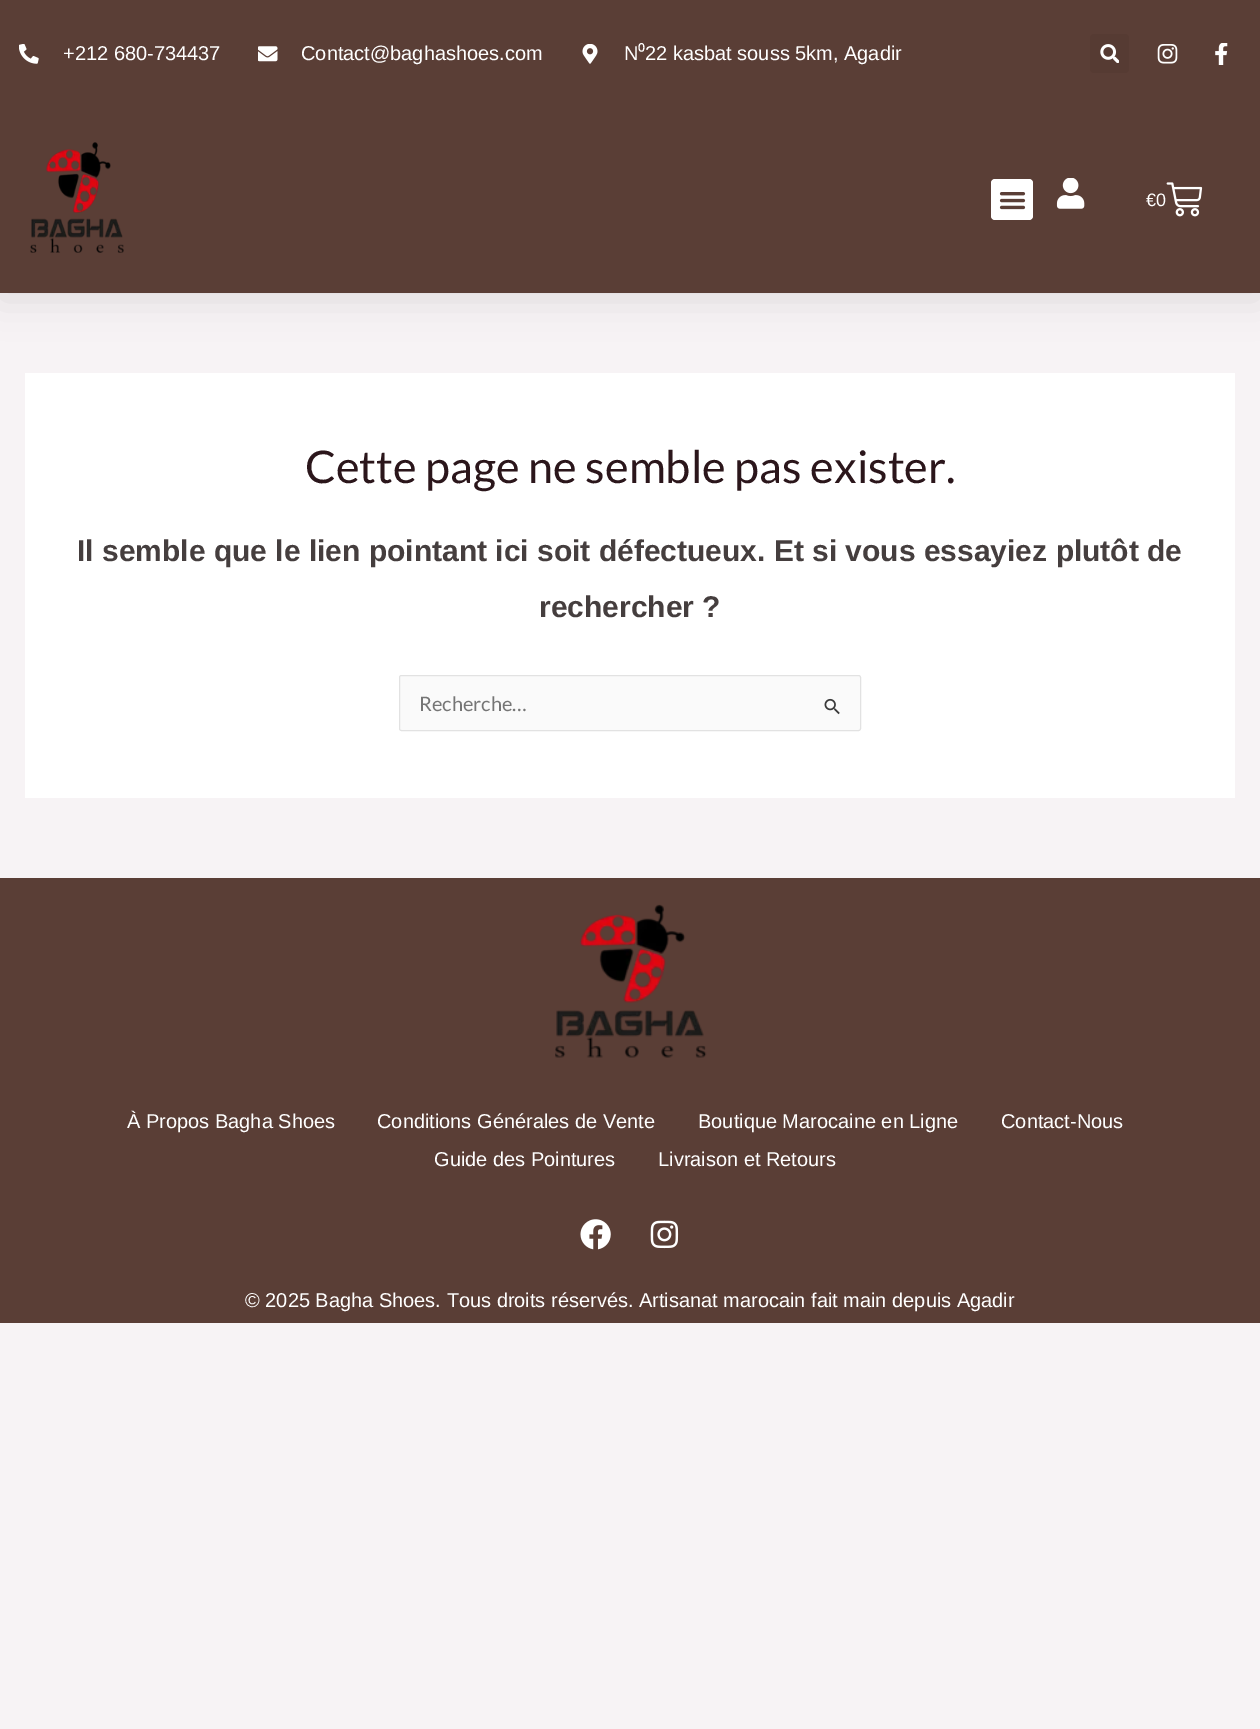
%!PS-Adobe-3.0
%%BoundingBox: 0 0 1260 1729
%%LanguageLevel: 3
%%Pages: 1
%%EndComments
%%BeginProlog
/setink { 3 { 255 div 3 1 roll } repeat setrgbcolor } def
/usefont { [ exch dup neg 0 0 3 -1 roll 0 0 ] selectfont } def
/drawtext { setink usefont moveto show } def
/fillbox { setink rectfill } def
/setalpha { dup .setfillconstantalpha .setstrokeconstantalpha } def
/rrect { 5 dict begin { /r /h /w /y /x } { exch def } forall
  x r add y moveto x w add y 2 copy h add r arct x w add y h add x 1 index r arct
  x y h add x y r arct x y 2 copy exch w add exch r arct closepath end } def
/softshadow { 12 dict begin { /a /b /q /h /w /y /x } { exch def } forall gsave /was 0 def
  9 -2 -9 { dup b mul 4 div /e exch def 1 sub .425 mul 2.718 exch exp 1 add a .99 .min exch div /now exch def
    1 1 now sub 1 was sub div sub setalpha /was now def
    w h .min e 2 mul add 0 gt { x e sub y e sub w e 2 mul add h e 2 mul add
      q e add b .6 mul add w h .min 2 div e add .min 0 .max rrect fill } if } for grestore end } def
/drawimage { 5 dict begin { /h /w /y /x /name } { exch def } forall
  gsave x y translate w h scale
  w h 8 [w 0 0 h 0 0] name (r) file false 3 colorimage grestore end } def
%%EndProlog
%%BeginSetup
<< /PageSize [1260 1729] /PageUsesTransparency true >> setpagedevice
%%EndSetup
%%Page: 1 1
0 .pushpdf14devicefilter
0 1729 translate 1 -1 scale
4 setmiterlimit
0 0 1260 1729 247 243 245 fillbox
0 0 0 setink
0 6 1260 293 0 19 0.1 softshadow
0 0 1260 293 90 62 54 fillbox
(assets/img1.rgb) 19 44 20 20 drawimage
(+212 680-734437) 63 60 /LiberationSans-Regular 20 255 255 255 drawtext
(assets/img2.rgb) 258 46 20 16 drawimage
(Contact@baghashoes.com) 301 60 /LiberationSans-Regular 20 255 255 255 drawtext
(assets/img3.rgb) 582 44 16 20 drawimage
(N) 624 60 /LiberationSans-Regular 20 255 255 255 drawtext
(⁰) 638 60 /NotoSans-Regular 20 255 255 255 drawtext
(22 kasbat souss 5km, Agadir) 645 60 /LiberationSans-Regular 20 255 255 255 drawtext
86 59 51 setink
1090 34 39 39 4 rrect fill
(assets/img4.rgb) 1100 44 19 19 drawimage
(assets/img5.rgb) 1157 44 21 20 drawimage
(assets/img6.rgb) 1215 43 13 22 drawimage
(assets/img7.rgb) 30 142 94 111 drawimage
255 255 255 setink
991 179 42 41 4 rrect fill
(assets/img8.rgb) 999 192 27 18 drawimage
(assets/img9.rgb) 1056 178 29 31 drawimage
(€0) 1146 206 /LiberationSans-Regular 18 255 255 255 drawtext
(assets/img10.rgb) 1166 182 37 35 drawimage
25 373 1210 425 255 255 255 fillbox
(Cette page ne semble pas exister.) 305 483 /Lato-Regular 45 43 22 27 drawtext
(Il semble que le lien pointant ici soit défectueux. Et si vous essayiez plutôt de) 77 561 /LiberationSans-Bold 30 69 62 62 drawtext
(rechercher ?) 539 617 /LiberationSans-Bold 30 69 62 62 drawtext
250 250 250 setink
399.5 675.5 461 55 2 rrect gsave fill grestore
226 226 226 setink
stroke
(Recherche…) 419 711 /Lato-Regular 20 117 117 117 drawtext
(assets/img11.rgb) 824 698 16 17 drawimage
0 878 1260 445 90 62 54 fillbox
(assets/img12.rgb) 555 904 152 154 drawimage
(À Propos Bagha Shoes) 127 1128 /LiberationSans-Regular 20 255 255 255 drawtext
(Conditions Générales de Vente) 377 1128 /LiberationSans-Regular 20 255 255 255 drawtext
(Boutique Marocaine en Ligne) 698 1128 /LiberationSans-Regular 20 255 255 255 drawtext
(Contact-Nous) 1001 1128 /LiberationSans-Regular 20 255 255 255 drawtext
(Guide des Pointures) 434 1166 /LiberationSans-Regular 20 255 255 255 drawtext
(Livraison et Retours) 658 1166 /LiberationSans-Regular 20 255 255 255 drawtext
(assets/img13.rgb) 580 1219 31 31 drawimage
(assets/img14.rgb) 650 1220 29 29 drawimage
(© 2025 Bagha Shoes. Tous droits réservés. Artisanat marocain fait main depuis Agadir) 245 1307 /LiberationSans-Regular 20 255 255 255 drawtext
.poppdf14devicefilter showpage
%%EOF
